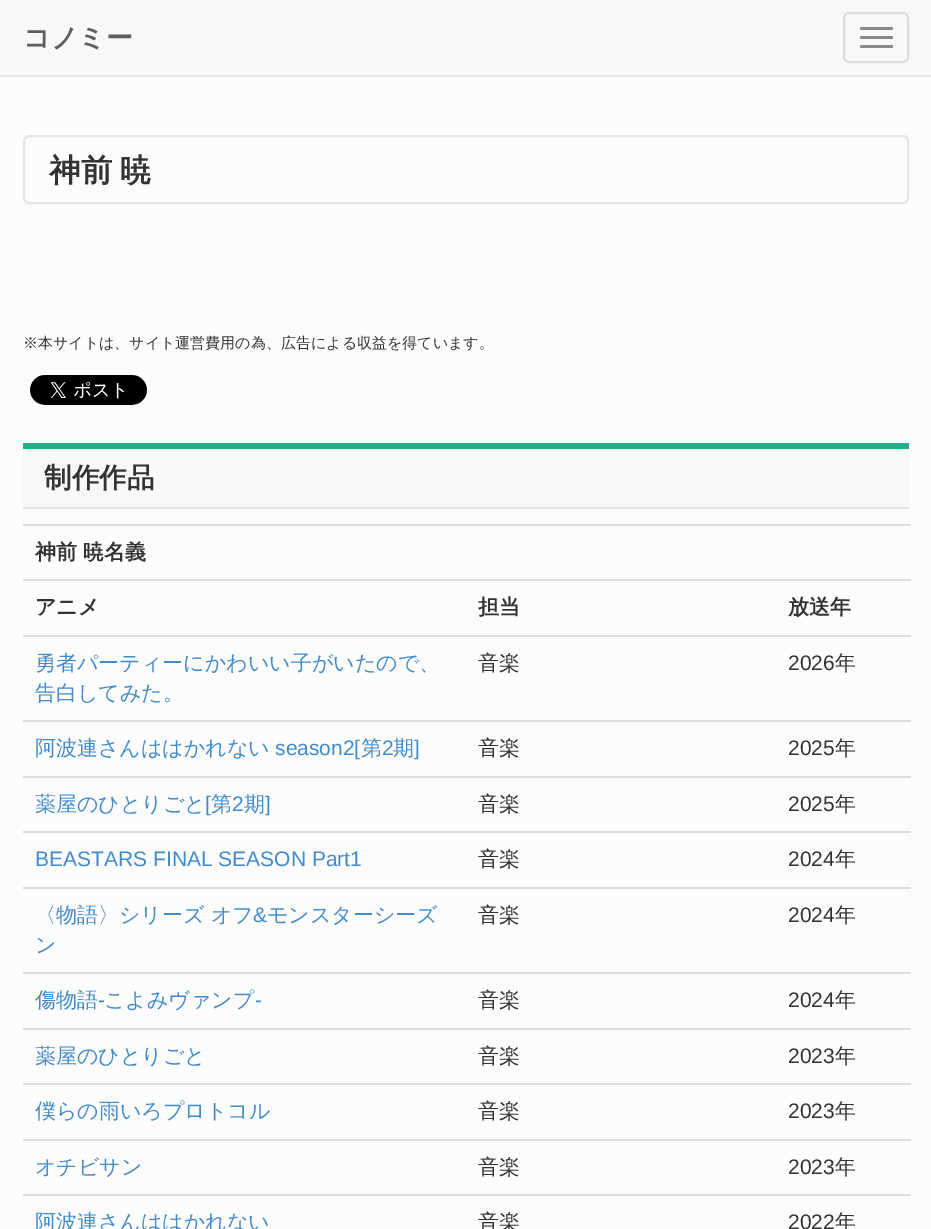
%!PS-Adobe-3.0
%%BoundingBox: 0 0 931 1229
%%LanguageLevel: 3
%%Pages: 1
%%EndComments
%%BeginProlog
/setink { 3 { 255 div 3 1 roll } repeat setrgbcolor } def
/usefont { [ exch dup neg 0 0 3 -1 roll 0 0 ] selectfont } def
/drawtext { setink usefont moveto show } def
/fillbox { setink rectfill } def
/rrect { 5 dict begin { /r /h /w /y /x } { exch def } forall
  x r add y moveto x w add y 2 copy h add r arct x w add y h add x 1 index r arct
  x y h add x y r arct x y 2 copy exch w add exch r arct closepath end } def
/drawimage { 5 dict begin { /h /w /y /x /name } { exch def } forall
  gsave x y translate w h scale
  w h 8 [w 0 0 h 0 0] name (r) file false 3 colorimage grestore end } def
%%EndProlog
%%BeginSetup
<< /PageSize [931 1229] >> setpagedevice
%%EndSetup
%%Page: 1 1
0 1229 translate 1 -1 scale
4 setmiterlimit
0 0 931 1229 252 252 252 fillbox
0 0 931 75 248 248 248 fillbox
0 75 931 2 231 231 231 fillbox
(コノミー) 23 47 /WenQuanYiZenHei-Bold 27 94 94 94 drawtext
221 221 221 setink
2 setlinewidth
844 13 64 49 5 rrect stroke
136 136 136 setink
860 27 33 3 1.5 rrect fill
860 36 33 3 1.5 rrect fill
860 45 33 3 1.5 rrect fill
229 229 229 setink
24 136 884 67 5 rrect stroke
/WenQuanYiZenHei-Bold 31.5 usefont
51 51 51 setink
49 181 moveto -1 0 32 (神前 暁) widthshow
(※本サイトは、サイト運営費用の為、広告による収益を得ています。) 23 348 /WenQuanYiZenHei-Medium 15 51 51 51 drawtext
(assets/img1.rgb) 30 375 117 30 drawimage
23 449 886 58 248 248 248 fillbox
23 443 886 6 39 172 139 fillbox
23 507 886 2 227 227 227 fillbox
(制作作品) 44 487 /WenQuanYiZenHei-Bold 27.5 51 51 51 drawtext
23 524 888 2 221 221 221 fillbox
(神前 暁名義) 35 559 /WenQuanYiZenHei-Bold 21 51 51 51 drawtext
(アニメ) 35 614 /WenQuanYiZenHei-Bold 21 51 51 51 drawtext
(担当) 478 614 /WenQuanYiZenHei-Bold 21 51 51 51 drawtext
23 579 888 2 221 221 221 fillbox
(放送年) 788 614 /WenQuanYiZenHei-Bold 21 51 51 51 drawtext
(勇者パーティーにかわいい子がいたので、) 35 670 /WenQuanYiZenHei-Medium 21 66 139 202 drawtext
(告白してみた。) 35 700 /WenQuanYiZenHei-Medium 21 66 139 202 drawtext
(音楽) 478 670 /WenQuanYiZenHei-Medium 21 51 51 51 drawtext
23 635 888 2 221 221 221 fillbox
(2026) 788 670 /LiberationSans-Regular 21 51 51 51 drawtext
(年) 835 670 /WenQuanYiZenHei-Medium 21 51 51 51 drawtext
(阿波連さんははかれない) 35 755 /WenQuanYiZenHei-Medium 21 66 139 202 drawtext
(season2[) 275 755 /LiberationSans-Regular 21 66 139 202 drawtext
(第) 361 755 /WenQuanYiZenHei-Medium 21 66 139 202 drawtext
(2) 382 755 /LiberationSans-Regular 21 66 139 202 drawtext
(期) 393 755 /WenQuanYiZenHei-Medium 21 66 139 202 drawtext
(]) 414 755 /LiberationSans-Regular 21 66 139 202 drawtext
(音楽) 478 755 /WenQuanYiZenHei-Medium 21 51 51 51 drawtext
23 720 888 2 221 221 221 fillbox
(2025) 788 755 /LiberationSans-Regular 21 51 51 51 drawtext
(年) 835 755 /WenQuanYiZenHei-Medium 21 51 51 51 drawtext
(薬屋のひとりごと) 35 811 /WenQuanYiZenHei-Medium 21 66 139 202 drawtext
([) 205 811 /LiberationSans-Regular 21 66 139 202 drawtext
(第) 211 811 /WenQuanYiZenHei-Medium 21 66 139 202 drawtext
(2) 232 811 /LiberationSans-Regular 21 66 139 202 drawtext
(期) 244 811 /WenQuanYiZenHei-Medium 21 66 139 202 drawtext
(]) 265 811 /LiberationSans-Regular 21 66 139 202 drawtext
(音楽) 478 811 /WenQuanYiZenHei-Medium 21 51 51 51 drawtext
23 776 888 2 221 221 221 fillbox
(2025) 788 811 /LiberationSans-Regular 21 51 51 51 drawtext
(年) 835 811 /WenQuanYiZenHei-Medium 21 51 51 51 drawtext
(BEASTARS FINAL SEASON Part1) 35 866 /LiberationSans-Regular 21 66 139 202 drawtext
(音楽) 478 866 /WenQuanYiZenHei-Medium 21 51 51 51 drawtext
23 831 888 2 221 221 221 fillbox
(2024) 788 866 /LiberationSans-Regular 21 51 51 51 drawtext
(年) 835 866 /WenQuanYiZenHei-Medium 21 51 51 51 drawtext
(〈物語〉シリーズ オフ) 35 922 /WenQuanYiZenHei-Medium 21 66 139 202 drawtext
(&) 253 922 /LiberationSans-Regular 21 66 139 202 drawtext
(モンスターシーズ) 267 922 /WenQuanYiZenHei-Medium 21 66 139 202 drawtext
(ン) 35 952 /WenQuanYiZenHei-Medium 21 66 139 202 drawtext
(音楽) 478 922 /WenQuanYiZenHei-Medium 21 51 51 51 drawtext
23 887 888 2 221 221 221 fillbox
(2024) 788 922 /LiberationSans-Regular 21 51 51 51 drawtext
(年) 835 922 /WenQuanYiZenHei-Medium 21 51 51 51 drawtext
(傷物語) 35 1007 /WenQuanYiZenHei-Medium 21 66 139 202 drawtext
(-) 98 1007 /LiberationSans-Regular 21 66 139 202 drawtext
(こよみヴァンプ) 104 1007 /WenQuanYiZenHei-Medium 21 66 139 202 drawtext
(-) 255 1007 /LiberationSans-Regular 21 66 139 202 drawtext
(音楽) 478 1007 /WenQuanYiZenHei-Medium 21 51 51 51 drawtext
23 972 888 2 221 221 221 fillbox
(2024) 788 1007 /LiberationSans-Regular 21 51 51 51 drawtext
(年) 835 1007 /WenQuanYiZenHei-Medium 21 51 51 51 drawtext
(薬屋のひとりごと) 35 1063 /WenQuanYiZenHei-Medium 21 66 139 202 drawtext
(音楽) 478 1063 /WenQuanYiZenHei-Medium 21 51 51 51 drawtext
23 1028 888 2 221 221 221 fillbox
(2023) 788 1063 /LiberationSans-Regular 21 51 51 51 drawtext
(年) 835 1063 /WenQuanYiZenHei-Medium 21 51 51 51 drawtext
(僕らの雨いろプロトコル) 35 1118 /WenQuanYiZenHei-Medium 21 66 139 202 drawtext
(音楽) 478 1118 /WenQuanYiZenHei-Medium 21 51 51 51 drawtext
23 1083 888 2 221 221 221 fillbox
(2023) 788 1118 /LiberationSans-Regular 21 51 51 51 drawtext
(年) 835 1118 /WenQuanYiZenHei-Medium 21 51 51 51 drawtext
(オチビサン) 35 1174 /WenQuanYiZenHei-Medium 21 66 139 202 drawtext
(音楽) 478 1174 /WenQuanYiZenHei-Medium 21 51 51 51 drawtext
23 1139 888 2 221 221 221 fillbox
(2023) 788 1174 /LiberationSans-Regular 21 51 51 51 drawtext
(年) 835 1174 /WenQuanYiZenHei-Medium 21 51 51 51 drawtext
(阿波連さんははかれない) 35 1229 /WenQuanYiZenHei-Medium 21 66 139 202 drawtext
(音楽) 478 1229 /WenQuanYiZenHei-Medium 21 51 51 51 drawtext
23 1194 888 2 221 221 221 fillbox
(2022) 788 1229 /LiberationSans-Regular 21 51 51 51 drawtext
(年) 835 1229 /WenQuanYiZenHei-Medium 21 51 51 51 drawtext
showpage
%%EOF
